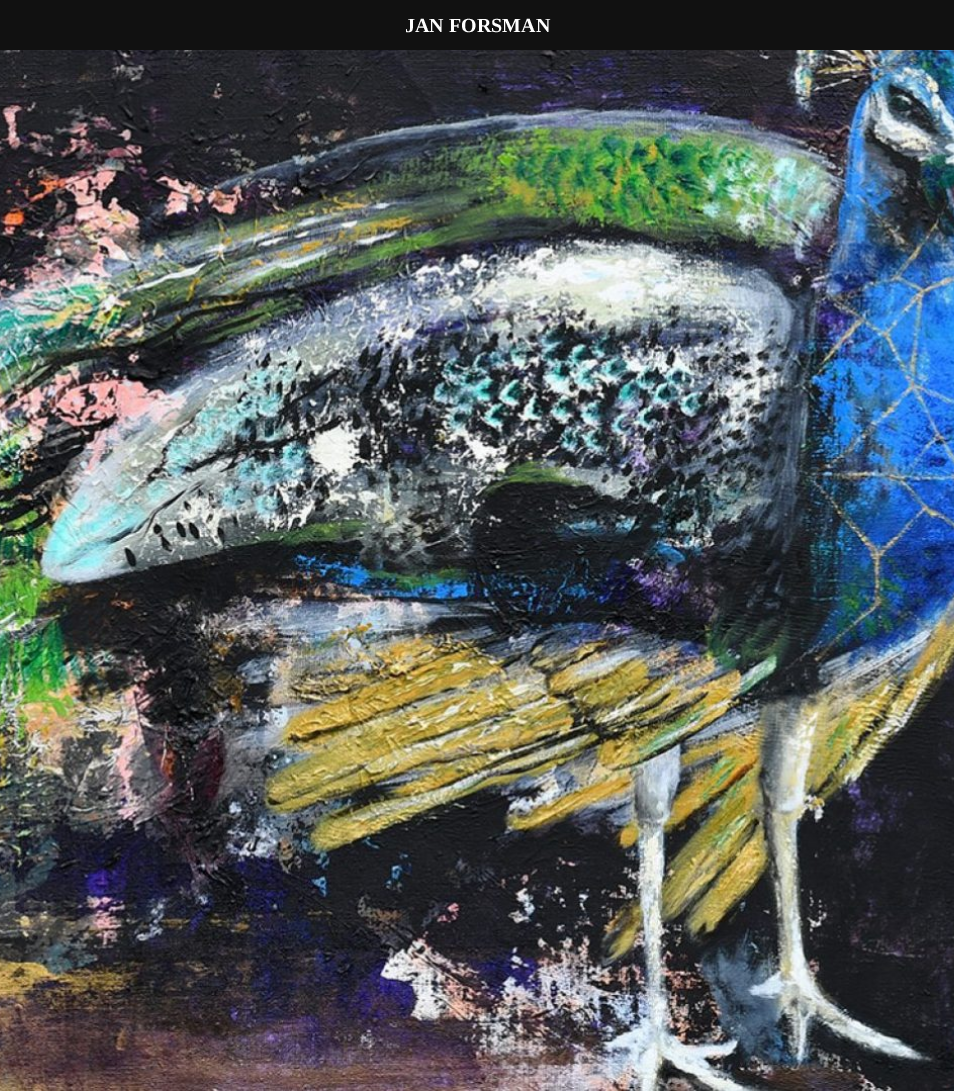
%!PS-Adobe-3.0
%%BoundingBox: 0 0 954 1091
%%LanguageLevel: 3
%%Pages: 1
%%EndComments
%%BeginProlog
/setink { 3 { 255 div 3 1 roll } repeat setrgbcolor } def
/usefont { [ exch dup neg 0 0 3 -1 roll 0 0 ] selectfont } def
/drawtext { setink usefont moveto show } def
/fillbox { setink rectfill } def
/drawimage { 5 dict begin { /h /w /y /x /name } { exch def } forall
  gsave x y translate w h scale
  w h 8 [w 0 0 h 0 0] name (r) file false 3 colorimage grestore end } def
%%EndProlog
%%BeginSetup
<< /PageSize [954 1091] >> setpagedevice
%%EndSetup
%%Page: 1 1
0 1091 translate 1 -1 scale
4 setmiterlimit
0 0 954 1091 255 255 255 fillbox
0 0 954 50 17 17 17 fillbox
(JAN FORSMAN) 405 32 /LiberationSerif-Bold 20 255 255 255 drawtext
(assets/img1.rgb) 0 50 954 1041 drawimage
showpage
%%EOF
